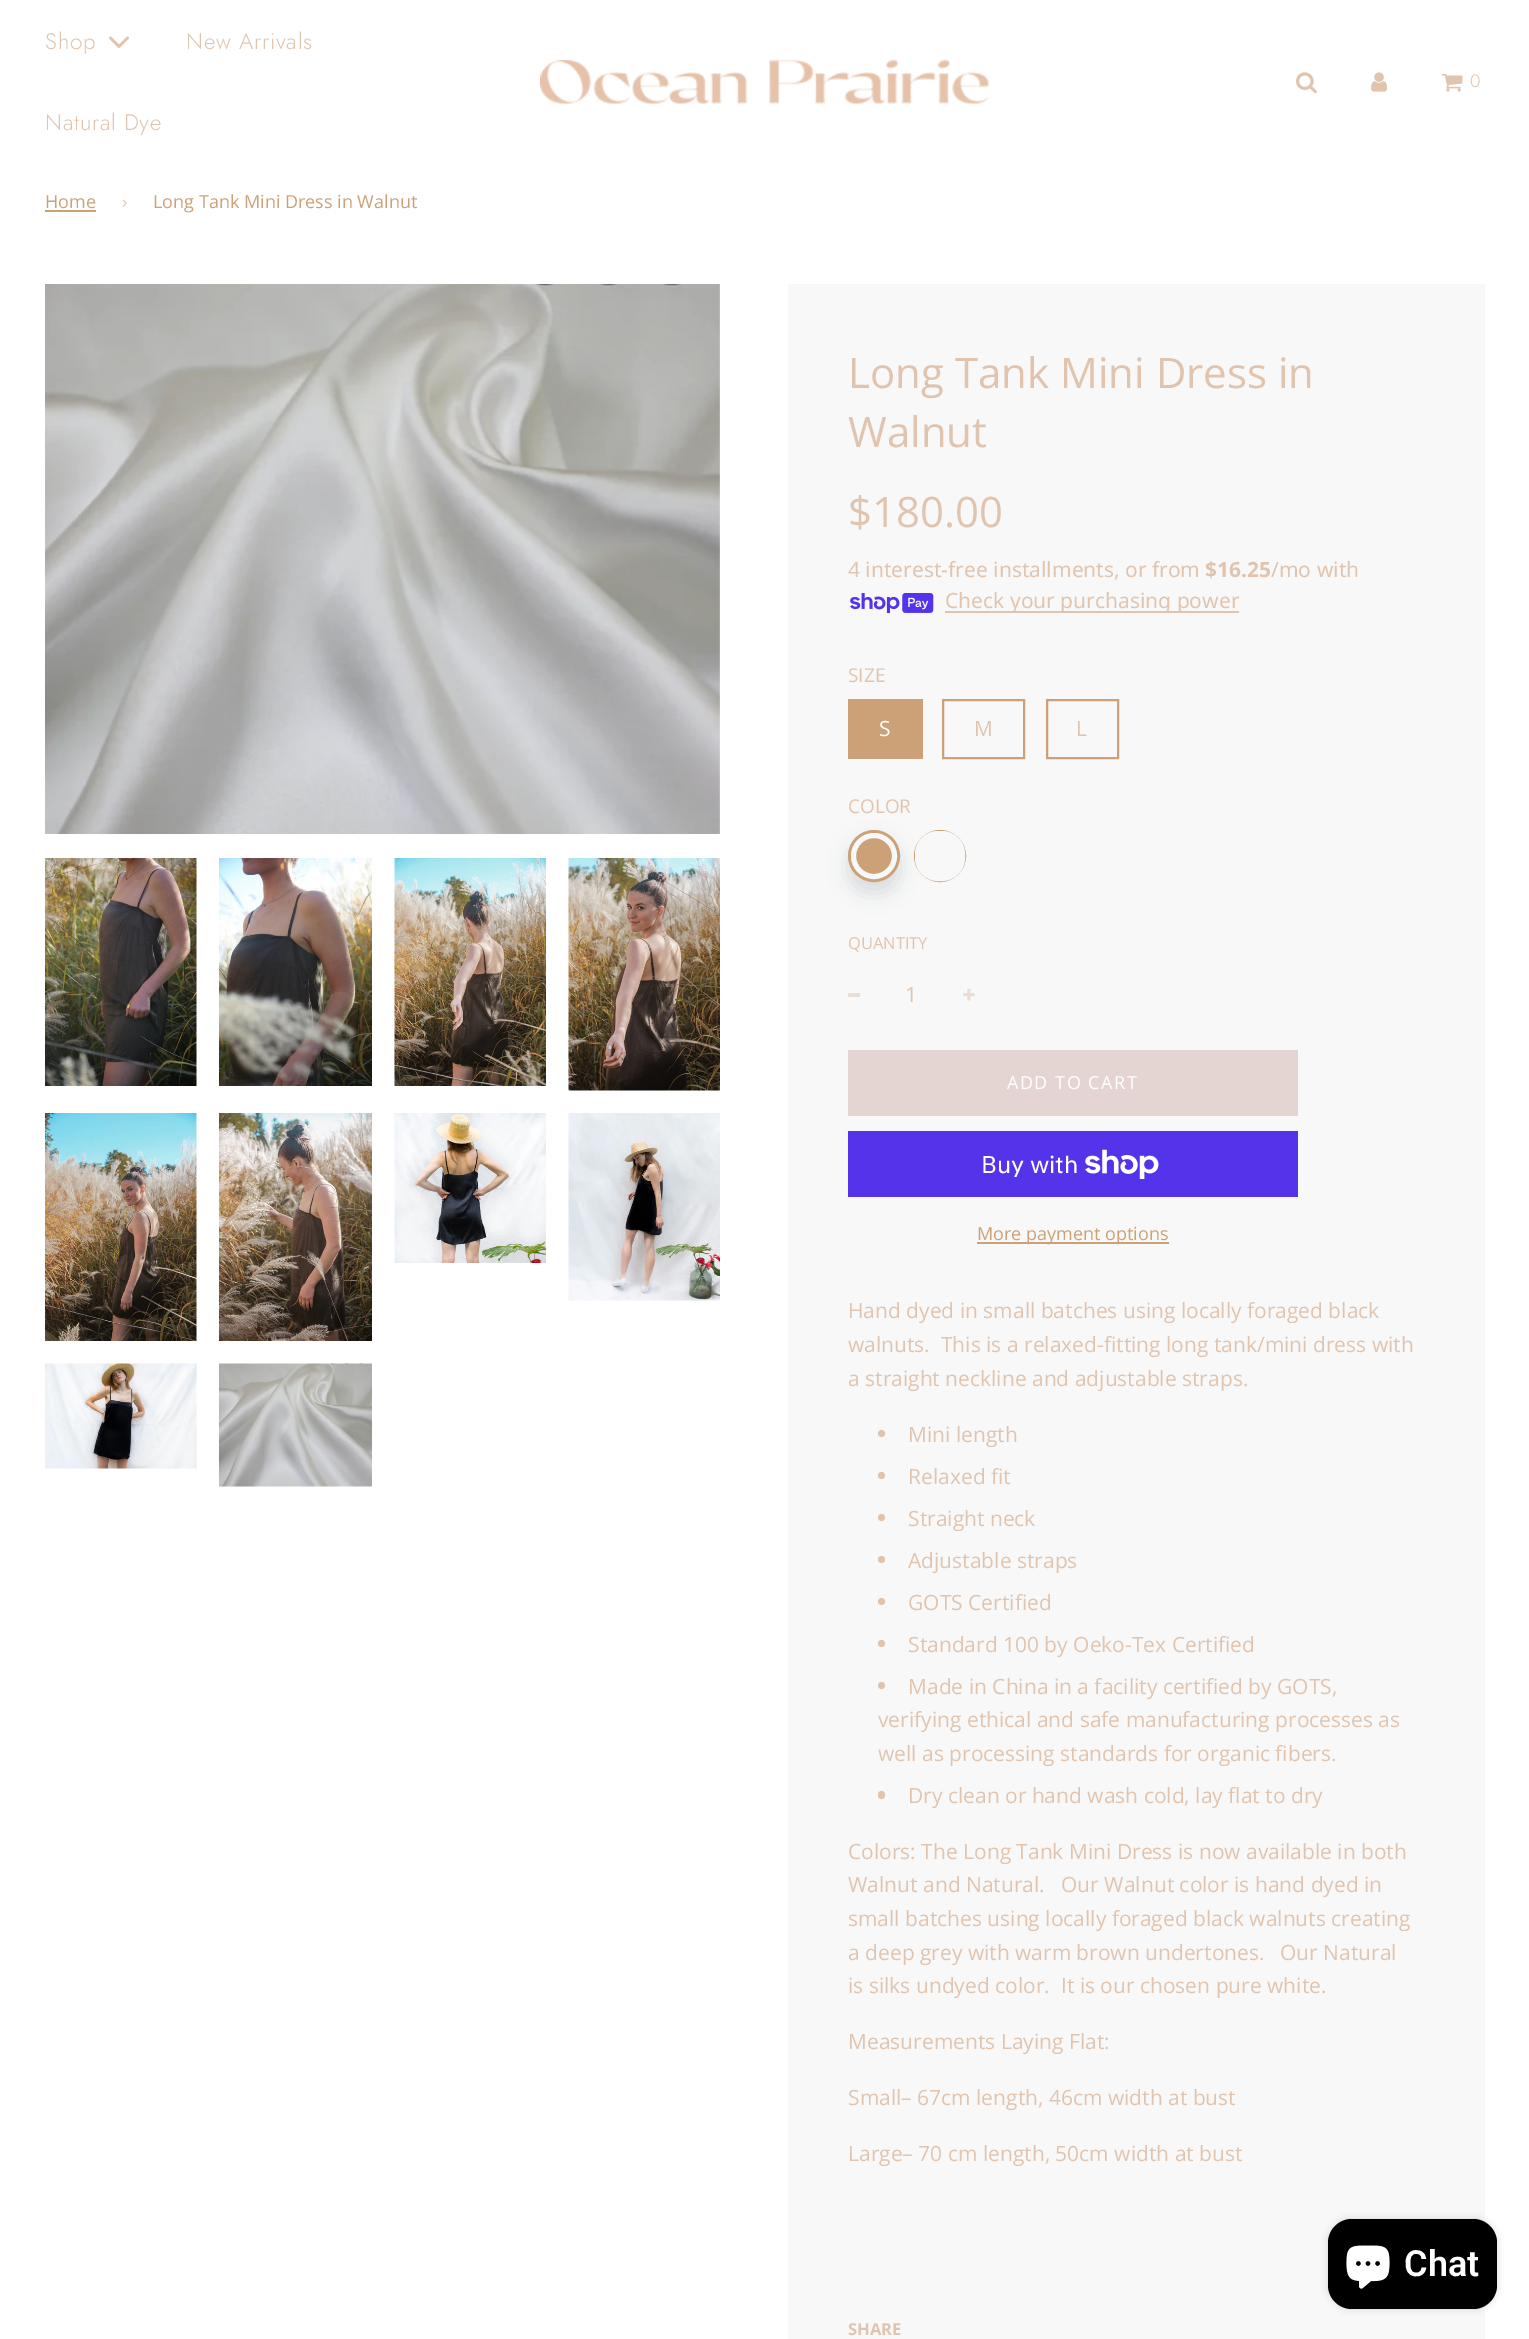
%!PS-Adobe-3.0
%%BoundingBox: 0 0 1529 2339
%%LanguageLevel: 3
%%Pages: 1
%%EndComments
%%BeginProlog
/setink { 3 { 255 div 3 1 roll } repeat setrgbcolor } def
/usefont { [ exch dup neg 0 0 3 -1 roll 0 0 ] selectfont } def
/drawtext { setink usefont moveto show } def
/fillbox { setink rectfill } def
/setalpha { dup .setfillconstantalpha .setstrokeconstantalpha } def
/disc { newpath 0 360 arc closepath } def
/rrect { 5 dict begin { /r /h /w /y /x } { exch def } forall
  x r add y moveto x w add y 2 copy h add r arct x w add y h add x 1 index r arct
  x y h add x y r arct x y 2 copy exch w add exch r arct closepath end } def
/softshadow { 12 dict begin { /a /b /q /h /w /y /x } { exch def } forall gsave /was 0 def
  9 -2 -9 { dup b mul 4 div /e exch def 1 sub .425 mul 2.718 exch exp 1 add a .99 .min exch div /now exch def
    1 1 now sub 1 was sub div sub setalpha /was now def
    w h .min e 2 mul add 0 gt { x e sub y e sub w e 2 mul add h e 2 mul add
      q e add b .6 mul add w h .min 2 div e add .min 0 .max rrect fill } if } for grestore end } def
/drawimage { 5 dict begin { /h /w /y /x /name } { exch def } forall
  gsave x y translate w h scale
  w h 8 [w 0 0 h 0 0] name (r) file false 3 colorimage grestore end } def
%%EndProlog
%%BeginSetup
<< /PageSize [1529 2339] /PageUsesTransparency true >> setpagedevice
%%EndSetup
%%Page: 1 1
0 .pushpdf14devicefilter
0 2339 translate 1 -1 scale
4 setmiterlimit
0 0 1529 2339 255 255 255 fillbox
/Jost-Light 22.5 usefont
225 196 174 setink
45 49 moveto 0.75 0 (Shop) ashow
2.8 setlinewidth
1 setlinecap
1 setlinejoin
110.5 38 moveto 119 46.5 lineto 127.5 38 lineto stroke
186 49 moveto 0.75 0 (New Arrivals) ashow
45 130 moveto 0.75 0 (Natural Dye) ashow
(assets/img1.rgb) 540 59 449 45 drawimage
(assets/img2.rgb) 1296 72 21 22 drawimage
(assets/img3.rgb) 1371 72 16 20 drawimage
(assets/img4.rgb) 1441 73 22 19 drawimage
(0) 1470 87 /Jost-Light 18 225 196 174 drawtext
(Home) 45 208 /OpenSans-Regular 18 205 161 119 drawtext
45 210 51 2 205 161 119 fillbox
(›) 122 208 /OpenSans-Regular 18 225 196 174 drawtext
(Long Tank Mini Dress in Walnut) 153 208 /OpenSans-Regular 18 205 161 119 drawtext
(assets/img5.rgb) 45 284 675 550 drawimage
(assets/img6.rgb) 45 858 152 228 drawimage
(assets/img7.rgb) 219 858 153 228 drawimage
(assets/img8.rgb) 394 858 152 228 drawimage
(assets/img9.rgb) 568 858 152 233 drawimage
(assets/img10.rgb) 45 1113 152 228 drawimage
(assets/img11.rgb) 219 1113 153 228 drawimage
(assets/img12.rgb) 394 1113 152 150 drawimage
(assets/img13.rgb) 568 1113 152 188 drawimage
(assets/img14.rgb) 45 1363 152 106 drawimage
(assets/img15.rgb) 219 1363 153 124 drawimage
788 284 697 2055 248 248 248 fillbox
(Long Tank Mini Dress in) 848 388 /OpenSans-Regular 42 225 196 174 drawtext
(Walnut) 848 447 /OpenSans-Regular 42 225 196 174 drawtext
($180.00) 848 527 /OpenSans-Regular 42 225 196 174 drawtext
(4 interest-free installments, or from) 848 577 /NotoSans-Regular 21 225 196 174 drawtext
($16.25) 1205 577 /NotoSans-Bold 21 225 196 174 drawtext
(/mo with) 1271 577 /NotoSans-Regular 21 225 196 174 drawtext
(assets/img16.rgb) 850 593 84 21 drawimage
945 611 294 2 225 196 174 fillbox
(Check your purchasing power) 945 608 /NotoSans-Regular 21 225 196 174 drawtext
(SIZE) 848 682 /OpenSans-Regular 19 225 196 174 drawtext
848 699 75 60 205 161 119 fillbox
(S) 879 736 /OpenSans-Regular 21 255 255 255 drawtext
205 161 119 setink
2 setlinewidth
0 setlinecap
0 setlinejoin
943 700 81 58 rectstroke
(M) 974 736 /OpenSans-Regular 21 225 196 174 drawtext
205 161 119 setink
1047 700 71 58 rectstroke
(L) 1076 736 /OpenSans-Regular 21 225 196 174 drawtext
(COLOR) 848 813 /OpenSans-Regular 19 225 196 174 drawtext
86 95 102 setink
848 840 52 53 26 10 0.2 softshadow
205 161 119 setink
874 856 24.5 disc gsave fill grestore
3 setlinewidth
stroke
248 248 248 setink
5 setlinewidth
874 856 20.5 disc stroke
205 161 119 setink
2 setlinewidth
940 856 25 disc stroke
248 248 248 setink
5 setlinewidth
917.5 833.5 45 45 20.5 rrect stroke
(QUANTITY) 848 949 /OpenSans-Regular 16.5 225 196 174 drawtext
848 993 12 4 237 222 211 fillbox
(1) 905 1002 /OpenSans-Regular 21 225 196 174 drawtext
(assets/img17.rgb) 963 988 12 13 drawimage
848 1050 450 66 228 213 211 fillbox
/OpenSans-Regular 18 usefont
255 255 255 setink
1007 1089 moveto 1.5 0 (ADD TO CART) ashow
848 1131 450 66 84 51 235 fillbox
(Buy with) 981 1173 /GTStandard-Regular 24 255 255 255 drawtext
(assets/img18.rgb) 1085 1149 74 30 drawimage
977 1242 192 2 205 161 119 fillbox
(More payment options) 977 1240 /OpenSans-Regular 18 205 161 119 drawtext
(Hand dyed in small batches using locally foraged black) 848 1318 /OpenSans-Regular 21 225 196 174 drawtext
(walnuts.  This is a relaxed-fitting long tank/mini dress with) 848 1352 /OpenSans-Regular 21 225 196 174 drawtext
(a straight neckline and adjustable straps.) 848 1386 /OpenSans-Regular 21 225 196 174 drawtext
881.5 1433.5 3.5 disc fill
(Mini length) 908 1442 /OpenSans-Regular 21 225 196 174 drawtext
881.5 1475.5 3.5 disc fill
(Relaxed fit) 908 1484 /OpenSans-Regular 21 225 196 174 drawtext
881.5 1517.5 3.5 disc fill
(Straight neck) 908 1526 /OpenSans-Regular 21 225 196 174 drawtext
881.5 1559.5 3.5 disc fill
(Adjustable straps) 908 1568 /OpenSans-Regular 21 225 196 174 drawtext
881.5 1601.5 3.5 disc fill
(GOTS Certified) 908 1610 /OpenSans-Regular 21 225 196 174 drawtext
881.5 1643.5 3.5 disc fill
(Standard 100 by Oeko-Tex Certified) 908 1652 /OpenSans-Regular 21 225 196 174 drawtext
881.5 1685.5 3.5 disc fill
(Made in China in a facility certified by GOTS,) 908 1694 /OpenSans-Regular 21 225 196 174 drawtext
(verifying ethical and safe manufacturing processes as) 878 1727 /OpenSans-Regular 21 225 196 174 drawtext
(well as processing standards for organic fibers.) 878 1761 /OpenSans-Regular 21 225 196 174 drawtext
878 1791 7 8 3.5 rrect fill
(Dry clean or hand wash cold, lay flat to dry) 908 1803 /OpenSans-Regular 21 225 196 174 drawtext
(Colors: The Long Tank Mini Dress is now available in both) 848 1859 /OpenSans-Regular 21 225 196 174 drawtext
(Walnut and Natural.   Our Walnut color is hand dyed in) 848 1892 /OpenSans-Regular 21 225 196 174 drawtext
(small batches using locally foraged black walnuts creating) 848 1926 /OpenSans-Regular 21 225 196 174 drawtext
(a deep grey with warm brown undertones.) 848 1960 /OpenSans-Regular 21 225 196 174 drawtext
(Our Natural) 1280 1960 /OpenSans-Regular 21 225 196 174 drawtext
(is silks undyed color.  It is our chosen pure white.) 848 1993 /OpenSans-Regular 21 225 196 174 drawtext
(Measurements Laying Flat:) 848 2049 /OpenSans-Regular 21 225 196 174 drawtext
(Small– 67cm length, 46cm width at bust) 848 2105 /OpenSans-Regular 21 225 196 174 drawtext
(Large– 70 cm length, 50cm width at bust) 848 2161 /OpenSans-Regular 21 225 196 174 drawtext
(SHARE) 848 2335 /OpenSans-Bold 16.5 225 196 174 drawtext
0 0 0 setink
1328 2219 169 90 24 4 0.15 softshadow
1328 2219 169 90 24 rrect fill
(assets/img19.rgb) 1346 2245 44 44 drawimage
(Chat) 1404 2276 /Roboto-SemiBold 36 255 255 255 drawtext
.poppdf14devicefilter showpage
%%EOF
